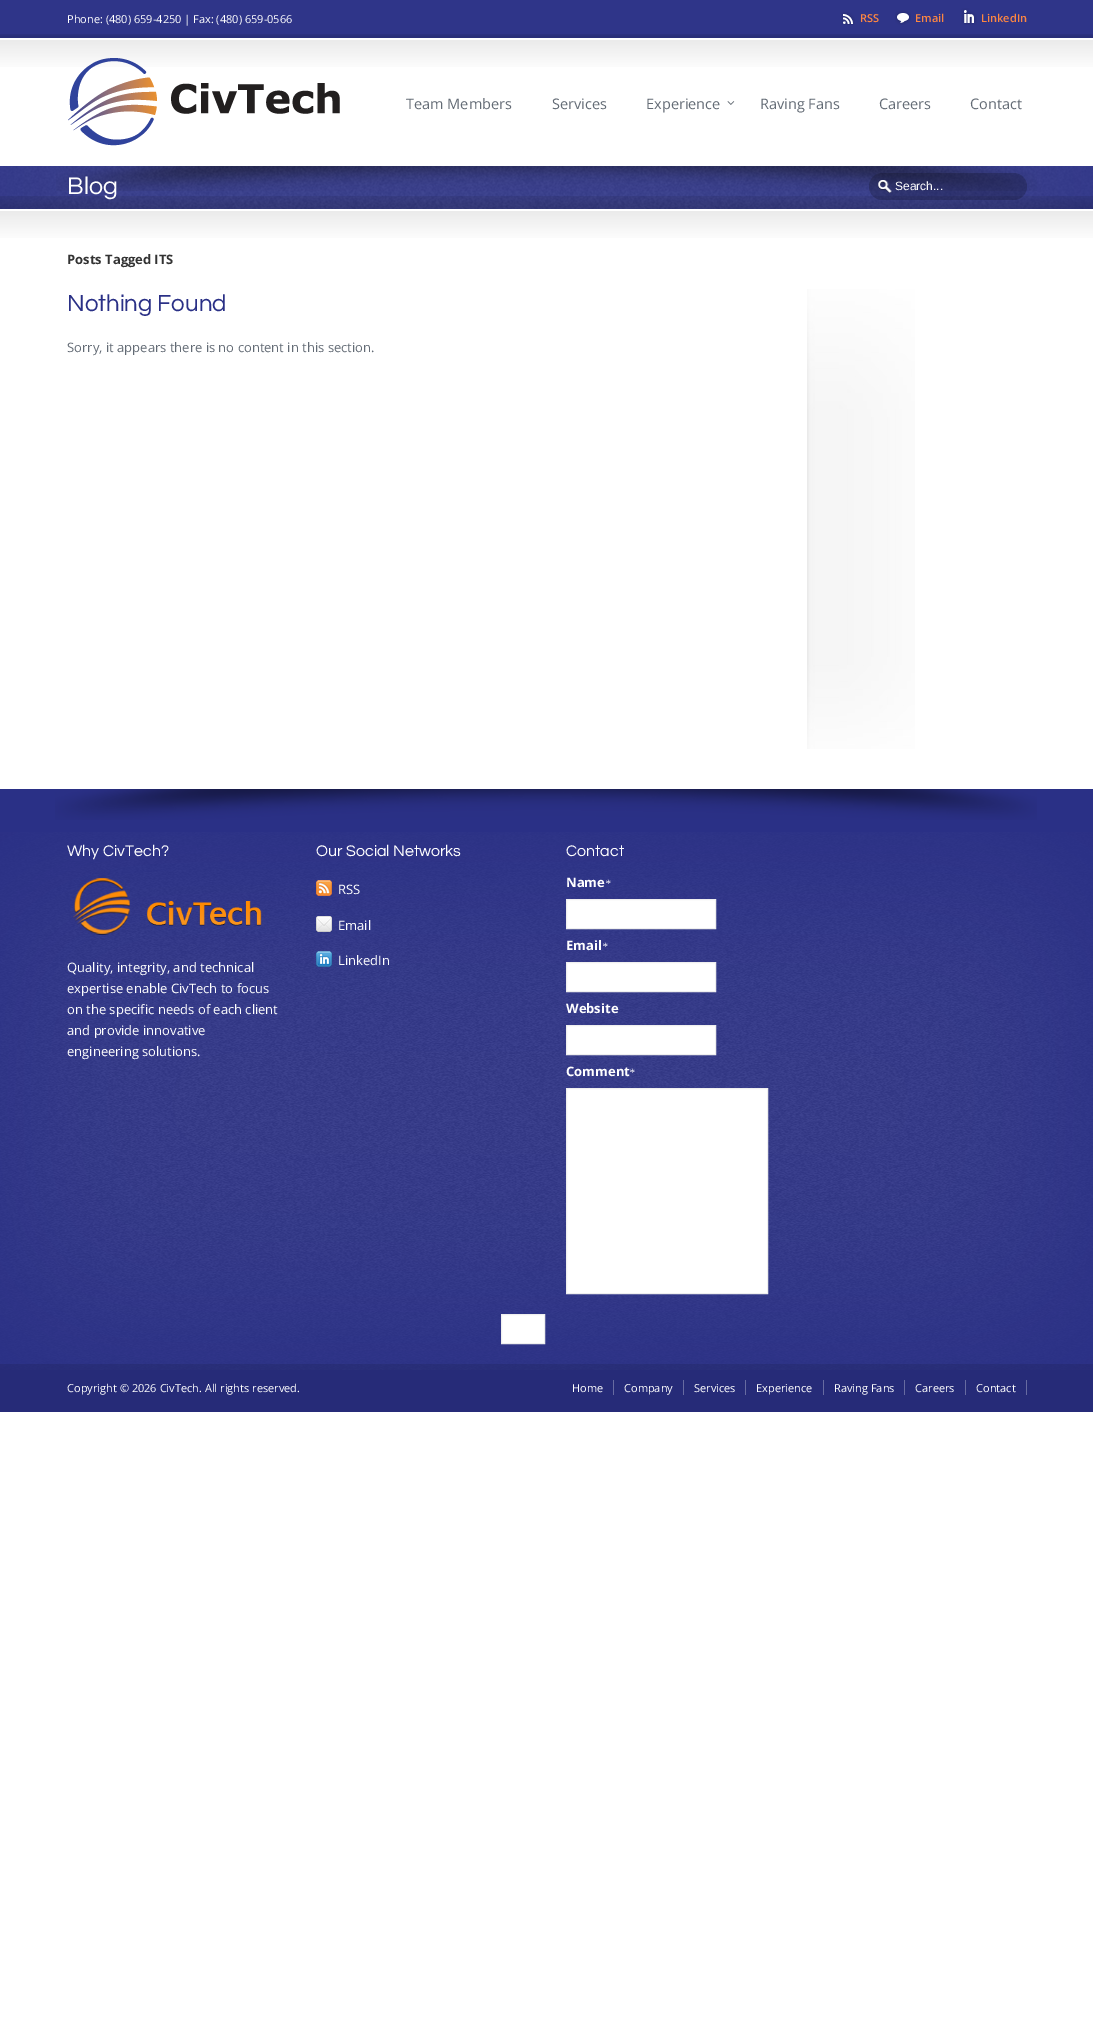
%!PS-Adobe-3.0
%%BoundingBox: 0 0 1093 2040
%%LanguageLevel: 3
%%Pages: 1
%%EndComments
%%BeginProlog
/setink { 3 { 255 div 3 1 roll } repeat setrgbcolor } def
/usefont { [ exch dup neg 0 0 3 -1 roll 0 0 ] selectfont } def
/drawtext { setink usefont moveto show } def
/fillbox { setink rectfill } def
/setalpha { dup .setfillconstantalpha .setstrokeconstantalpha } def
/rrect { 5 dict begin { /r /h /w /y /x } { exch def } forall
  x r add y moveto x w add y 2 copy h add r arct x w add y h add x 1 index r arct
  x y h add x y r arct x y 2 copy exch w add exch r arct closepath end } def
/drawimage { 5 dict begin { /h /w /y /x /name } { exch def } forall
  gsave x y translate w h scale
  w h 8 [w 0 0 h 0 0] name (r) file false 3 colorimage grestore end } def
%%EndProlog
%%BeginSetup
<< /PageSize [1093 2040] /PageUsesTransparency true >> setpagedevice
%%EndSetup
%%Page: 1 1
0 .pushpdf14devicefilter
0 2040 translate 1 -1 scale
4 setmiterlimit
0 0 1093 2040 255 255 255 fillbox
0 0 1093 38 47 53 137 fillbox
(Phone: \(480\) 659-4250 | Fax: \(480\) 659-0566) 67 23 /OpenSans-Regular 11 255 255 255 drawtext
(assets/img1.rgb) 841 12 14 13 drawimage
(RSS) 860 22 /OpenSans-SemiBold 11 253 134 65 drawtext
(assets/img2.rgb) 895 10 16 15 drawimage
(Email) 915 22 /OpenSans-SemiBold 11 253 134 65 drawtext
(assets/img3.rgb) 961 8 16 17 drawimage
(LinkedIn) 981 22 /OpenSans-SemiBold 11 253 134 65 drawtext
(assets/img4.rgb) 0 34 1093 4 drawimage
(assets/img5.rgb) 0 40 1093 27 drawimage
(assets/img6.rgb) 68 58 272 88 drawimage
(Team Members) 406 109 /OpenSans-Regular 14.5 99 107 117 drawtext
(Services) 552 109 /OpenSans-Regular 14.5 99 107 117 drawtext
(Experience) 646 109 /OpenSans-Regular 14.5 99 107 117 drawtext
(assets/img7.rgb) 727 101 8 4 drawimage
(Raving Fans) 760 109 /OpenSans-Regular 14.5 99 107 117 drawtext
(Careers) 879 109 /OpenSans-Regular 14.5 99 107 117 drawtext
(Contact) 970 109 /OpenSans-Regular 14.5 99 107 117 drawtext
0 166 1093 43 47 53 137 fillbox
(assets/img9.rgb) 56 166 981 25 drawimage
(assets/img11.rgb) 0 196 1093 13 drawimage
(assets/img8.rgb) 0 166 1093 43 drawimage
(Blog) 67 194 /Questrial-Regular 25 255 255 255 drawtext
0.2 setalpha
0 0 0 setink
869 173 158 27 13.5 rrect fill
1 setalpha
(assets/img10.rgb) 878 180 14 13 drawimage
(Search...) 895 190 /LiberationSans-Regular 12 255 255 255 drawtext
(assets/img5.rgb) 0 211 1093 27 drawimage
(Posts Tagged ITS) 67 264 /OpenSans-Bold 13 51 51 51 drawtext
(Nothing Found) 67 311 /Questrial-Regular 24 42 48 134 drawtext
(Sorry, it appears there is no content in this section.) 67 352 /OpenSans-Regular 13 99 107 117 drawtext
(assets/img12.rgb) 807 289 108 460 drawimage
0 789 1093 623 42 48 134 fillbox
(assets/img13.rgb) 55 789 982 31 drawimage
(assets/img14.rgb) 0 832 1093 538 drawimage
(Why CivTech?) 67 856 /Questrial-Regular 16 255 255 255 drawtext
(assets/img15.rgb) 73 878 189 57 drawimage
(Quality, integrity, and technical) 67 972 /OpenSans-Regular 13 255 255 255 drawtext
(expertise enable CivTech to focus) 67 993 /OpenSans-Regular 13 255 255 255 drawtext
(on the specific needs of each client) 67 1014 /OpenSans-Regular 13 255 255 255 drawtext
(and provide innovative) 67 1035 /OpenSans-Regular 13 255 255 255 drawtext
(engineering solutions.) 67 1056 /OpenSans-Regular 13 255 255 255 drawtext
(Our Social Networks) 316 856 /Questrial-Regular 16 255 255 255 drawtext
(assets/img16.rgb) 316 880 16 16 drawimage
(RSS) 338 894 /OpenSans-Regular 13 255 255 255 drawtext
(assets/img17.rgb) 316 916 16 16 drawimage
(Email) 338 930 /OpenSans-Regular 13 255 255 255 drawtext
(assets/img18.rgb) 316 951 16 16 drawimage
(LinkedIn) 338 965 /OpenSans-Regular 13 255 255 255 drawtext
(Contact) 566 856 /Questrial-Regular 16 255 255 255 drawtext
(Name) 566 887 /OpenSans-Bold 13 255 255 255 drawtext
(*) 605 887 /LiberationSerif-Italic 11 255 255 255 drawtext
566.5 899.5 moveto 715.5 899.5 lineto 715.5 928.5 lineto 566.5 928.5 lineto closepath gsave fill grestore
239 239 239 setink
stroke
(Email) 566 950 /OpenSans-Bold 13 255 255 255 drawtext
(*) 602 950 /LiberationSerif-Italic 11 255 255 255 drawtext
566.5 962.5 moveto 715.5 962.5 lineto 715.5 991.5 lineto 566.5 991.5 lineto closepath gsave fill grestore
239 239 239 setink
stroke
(Website) 566 1013 /OpenSans-Bold 13 255 255 255 drawtext
566.5 1025.5 moveto 715.5 1025.5 lineto 715.5 1054.5 lineto 566.5 1054.5 lineto closepath gsave fill grestore
239 239 239 setink
stroke
(Comment) 566 1076 /OpenSans-Bold 13 255 255 255 drawtext
(*) 629 1076 /LiberationSerif-Italic 11 255 255 255 drawtext
566.5 1088.5 moveto 767.5 1088.5 lineto 767.5 1293.5 lineto 566.5 1293.5 lineto closepath gsave fill grestore
239 239 239 setink
stroke
255 255 255 setink
501.5 1314.5 moveto 544.5 1314.5 lineto 544.5 1343.5 lineto 501.5 1343.5 lineto closepath gsave fill grestore
239 239 239 setink
stroke
0.1 setalpha
0 1364 1093 48 0 0 0 fillbox
1 setalpha
(Copyright © 2026 CivTech. All rights reserved.) 67 1392 /OpenSans-Regular 11 255 255 255 drawtext
(Home) 572 1392 /OpenSans-Regular 11 255 255 255 drawtext
613 1380 1 15 103 107 161 fillbox
(Company) 624 1392 /OpenSans-Regular 11 255 255 255 drawtext
683 1380 1 15 103 107 161 fillbox
(Services) 694 1392 /OpenSans-Regular 11 255 255 255 drawtext
745 1380 1 15 103 107 161 fillbox
(Experience) 756 1392 /OpenSans-Regular 11 255 255 255 drawtext
823 1380 1 15 103 107 161 fillbox
(Raving Fans) 834 1392 /OpenSans-Regular 11 255 255 255 drawtext
904 1380 1 15 103 107 161 fillbox
(Careers) 915 1392 /OpenSans-Regular 11 255 255 255 drawtext
965 1380 1 15 103 107 161 fillbox
(Contact) 976 1392 /OpenSans-Regular 11 255 255 255 drawtext
1026 1380 1 15 103 107 161 fillbox
.poppdf14devicefilter showpage
%%EOF
